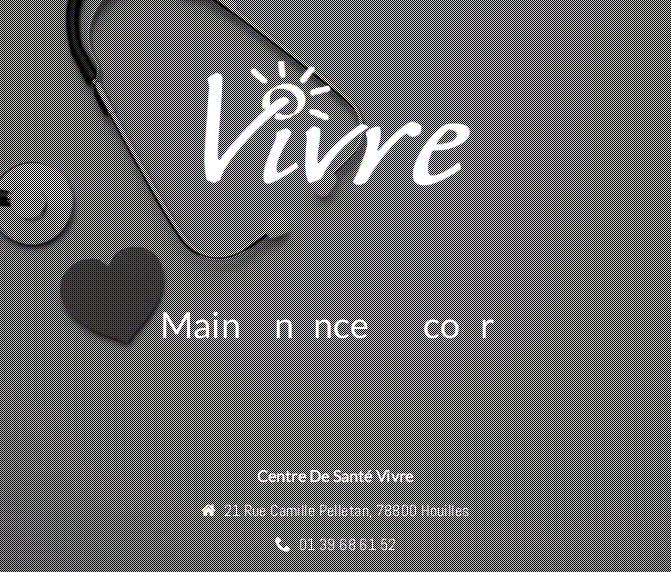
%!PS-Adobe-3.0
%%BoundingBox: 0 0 671 572
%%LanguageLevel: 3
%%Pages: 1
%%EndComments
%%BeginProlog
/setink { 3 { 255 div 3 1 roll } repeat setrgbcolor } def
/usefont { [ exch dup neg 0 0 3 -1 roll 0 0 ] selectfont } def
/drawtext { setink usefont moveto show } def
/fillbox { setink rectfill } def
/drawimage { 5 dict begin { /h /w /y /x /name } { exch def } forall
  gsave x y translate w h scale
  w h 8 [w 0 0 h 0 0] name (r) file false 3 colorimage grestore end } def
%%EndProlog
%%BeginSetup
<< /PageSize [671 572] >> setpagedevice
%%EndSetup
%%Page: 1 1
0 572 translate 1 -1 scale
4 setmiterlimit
0 0 671 572 255 255 255 fillbox
(assets/img1.rgb) 0 0 671 572 drawimage
(assets/img2.rgb) 0 0 671 572 drawimage
(assets/img3.rgb) 203 61 268 125 drawimage
(Main) 160 338 /Lato-Regular 36 255 255 255 drawtext
(n) 274 338 /Lato-Regular 36 255 255 255 drawtext
(nce) 313 338 /Lato-Regular 36 255 255 255 drawtext
(co) 423 338 /Lato-Regular 36 255 255 255 drawtext
(r) 480 338 /Lato-Regular 36 255 255 255 drawtext
(Centre De Santé Vivre) 257 482 /Lato-Bold 16 255 255 255 drawtext
(assets/img4.rgb) 201 504 15 12 drawimage
(21 Rue Camille Pelletan, 78800 Houilles) 224 516 /Abel-Regular 16 255 255 255 drawtext
(assets/img5.rgb) 275 537 15 15 drawimage
(01 39 68 61 52) 299 550 /Abel-Regular 16 255 255 255 drawtext
showpage
%%EOF
